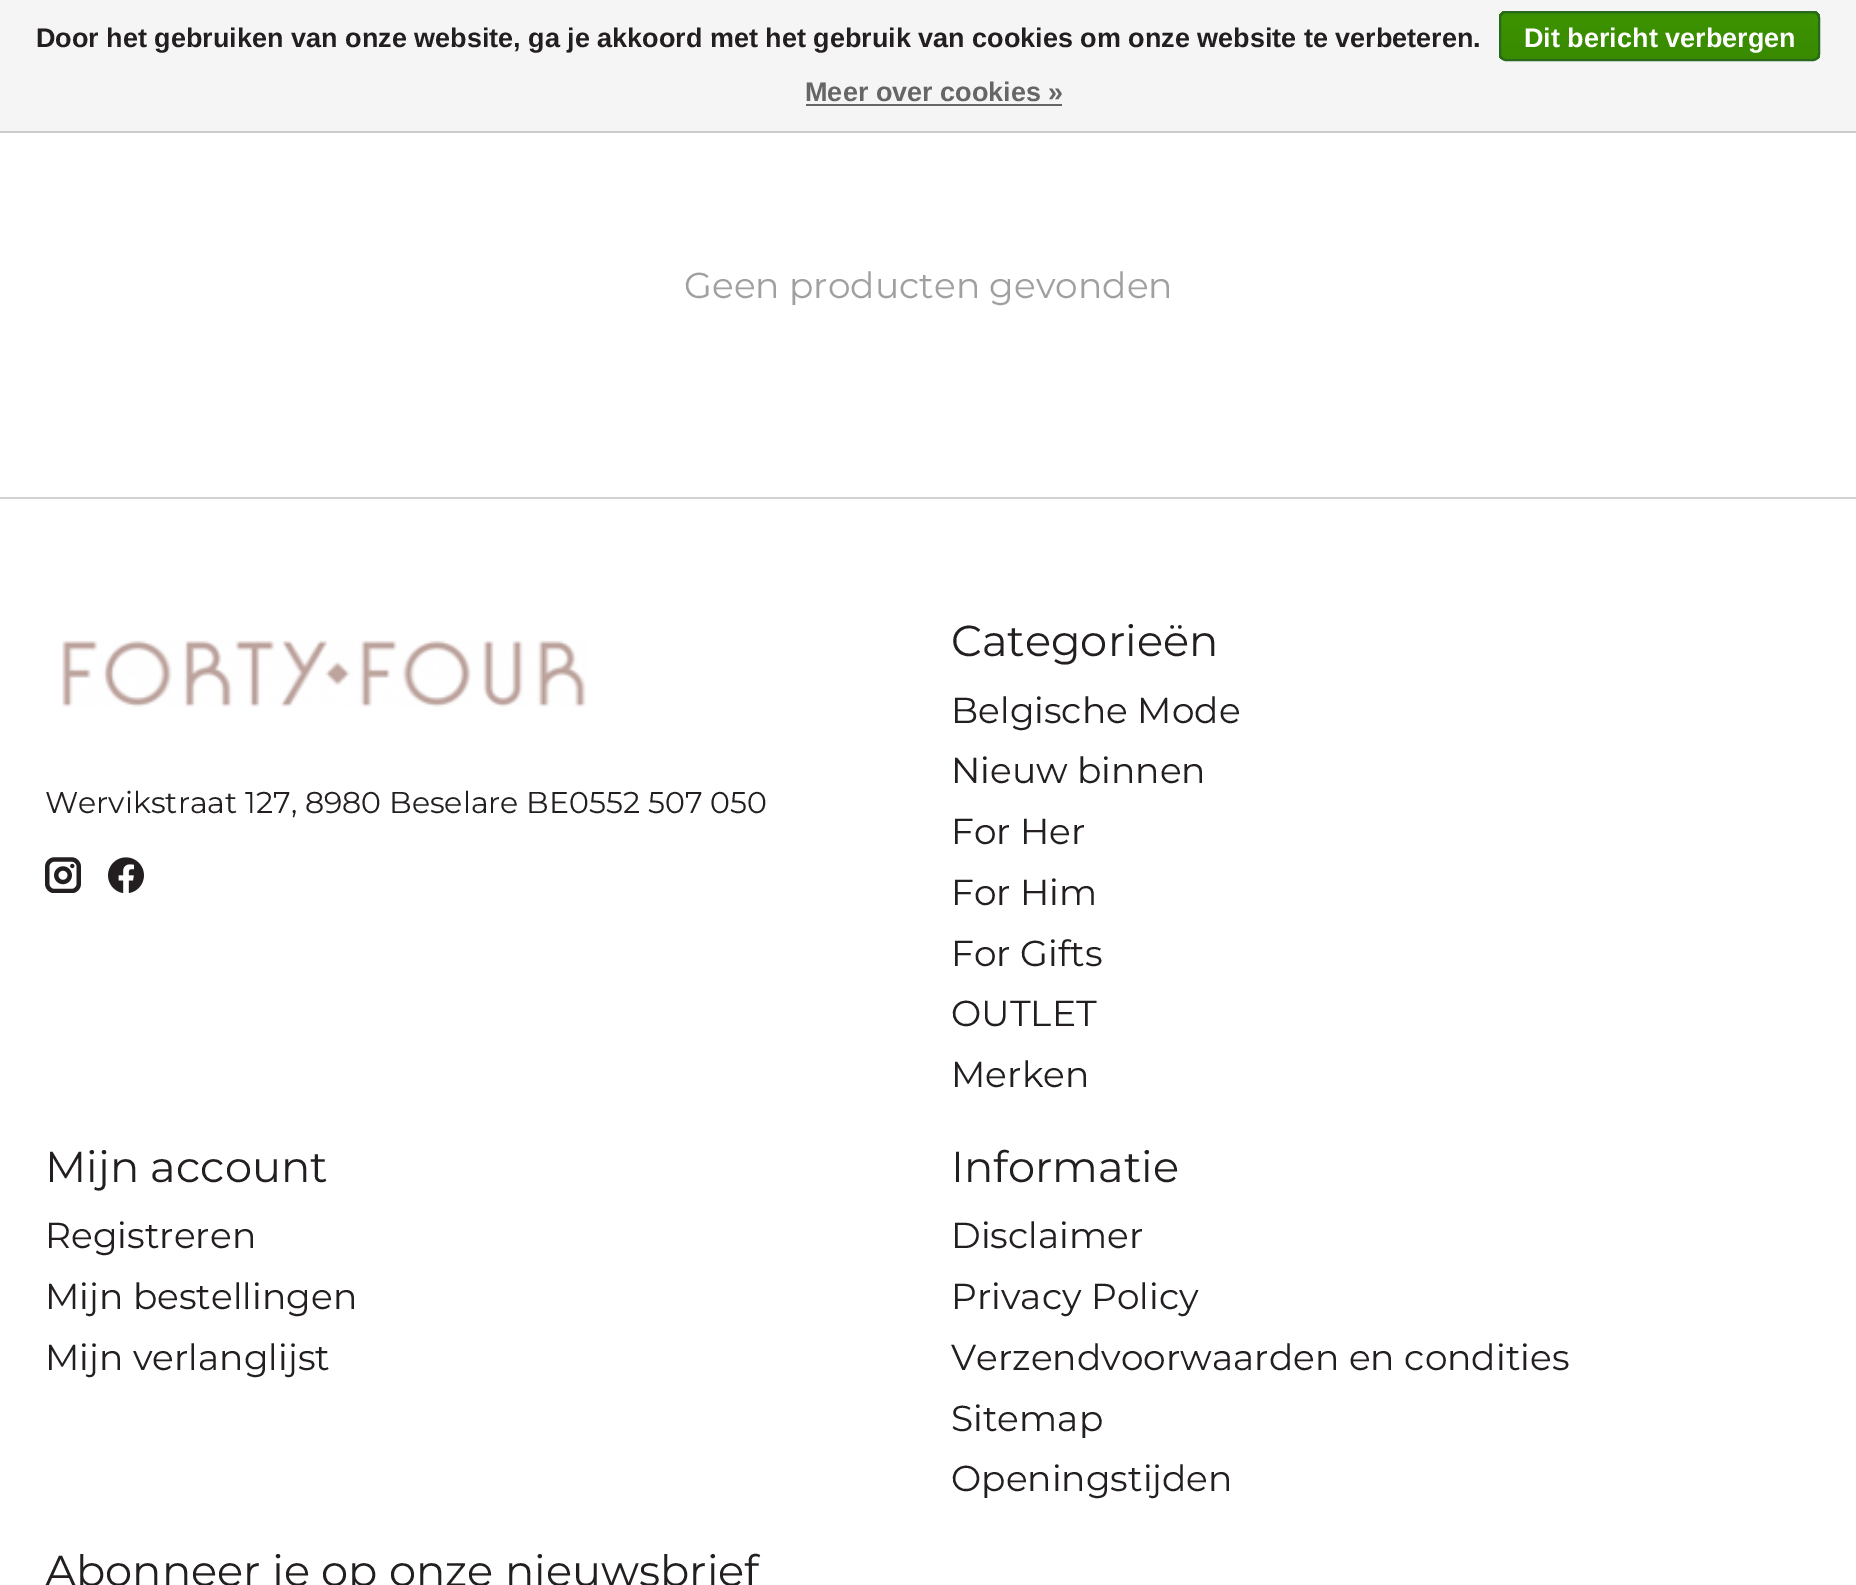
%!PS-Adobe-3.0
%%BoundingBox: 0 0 1856 1585
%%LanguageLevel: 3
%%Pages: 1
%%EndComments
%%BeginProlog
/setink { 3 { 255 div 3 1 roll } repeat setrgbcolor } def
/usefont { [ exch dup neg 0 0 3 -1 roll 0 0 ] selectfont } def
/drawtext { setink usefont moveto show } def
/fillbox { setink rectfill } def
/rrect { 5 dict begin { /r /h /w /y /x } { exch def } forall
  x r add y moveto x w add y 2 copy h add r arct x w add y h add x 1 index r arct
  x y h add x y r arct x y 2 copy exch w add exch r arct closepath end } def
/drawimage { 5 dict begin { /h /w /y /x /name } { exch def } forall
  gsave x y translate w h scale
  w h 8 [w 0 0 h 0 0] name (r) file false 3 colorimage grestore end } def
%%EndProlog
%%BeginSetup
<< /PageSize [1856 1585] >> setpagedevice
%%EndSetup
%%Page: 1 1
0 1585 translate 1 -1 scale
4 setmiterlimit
0 0 1856 1585 255 255 255 fillbox
0 0 1856 131 245 245 245 fillbox
0 131 1856 2 204 204 204 fillbox
(Door het gebruiken van onze website, ga je akkoord met het gebruik van cookies om onze website te verbeteren.) 36 47 /LiberationSans-Bold 27 35 31 32 drawtext
gsave
1499 11 321 50 7 rrect clip newpath
gsave 1499 11 moveto 1820 11 lineto 1820 14 lineto 1499 14 lineto closepath clip newpath
<< /ShadingType 2 /ColorSpace /DeviceRGB /Coords [1659 -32 1659 14] /Extend [true true] /Function << /FunctionType 2 /Domain [0 1] /C0 [0.235 0.576 0] /C1 [0.224 0.541 0] /N 1 >> >> shfill grestore
gsave 1499 14 moveto 1820 14 lineto 1820 59 lineto 1499 59 lineto closepath clip newpath
<< /ShadingType 2 /ColorSpace /DeviceRGB /Coords [1659 13 1659 59] /Extend [true true] /Function << /FunctionType 2 /Domain [0 1] /C0 [0.235 0.576 0] /C1 [0.224 0.541 0] /N 1 >> >> shfill grestore
grestore
41 105 29 setink
2 setlinewidth
1500 12 319 48 6 rrect stroke
(Dit bericht verbergen) 1524 47 /LiberationSans-Bold 27 255 255 255 drawtext
(Meer over cookies ») 805 101 /LiberationSans-Bold 27 102 102 102 drawtext
806 104 256 2 102 102 102 fillbox
(Geen producten gevonden) 684 298 /Montserrat-Regular 36 160 160 160 drawtext
0 497 1856 2 211 210 210 fillbox
(assets/img1.rgb) 62 640 524 67 drawimage
(Wervikstraat 127, 8980 Beselare BE0552 507 050) 45 813 /Montserrat-Regular 30 35 31 32 drawtext
(assets/img2.rgb) 45 857 36 36 drawimage
(assets/img3.rgb) 108 857 36 36 drawimage
(Categorieën) 951 656 /Montserrat-Regular 43.25 35 31 32 drawtext
(Belgische Mode) 951 723 /Montserrat-Regular 36 35 31 32 drawtext
(Nieuw binnen) 951 783 /Montserrat-Regular 36 35 31 32 drawtext
(For Her) 951 844 /Montserrat-Regular 36 35 31 32 drawtext
(For Him) 951 905 /Montserrat-Regular 36 35 31 32 drawtext
(For Gifts) 951 966 /Montserrat-Regular 36 35 31 32 drawtext
(OUTLET) 951 1026 /Montserrat-Regular 36 35 31 32 drawtext
(Merken) 951 1087 /Montserrat-Regular 36 35 31 32 drawtext
(Mijn account) 45 1182 /Montserrat-Regular 43.25 35 31 32 drawtext
(Registreren) 45 1248 /Montserrat-Regular 36 35 31 32 drawtext
(Mijn bestellingen) 45 1309 /Montserrat-Regular 36 35 31 32 drawtext
(Mijn verlanglijst) 45 1370 /Montserrat-Regular 36 35 31 32 drawtext
(Informatie) 951 1182 /Montserrat-Regular 43.25 35 31 32 drawtext
(Disclaimer) 951 1248 /Montserrat-Regular 36 35 31 32 drawtext
(Privacy Policy) 951 1309 /Montserrat-Regular 36 35 31 32 drawtext
(Verzendvoorwaarden en condities) 951 1370 /Montserrat-Regular 36 35 31 32 drawtext
(Sitemap) 951 1431 /Montserrat-Regular 36 35 31 32 drawtext
(Openingstijden) 951 1491 /Montserrat-Regular 36 35 31 32 drawtext
(Abonneer je op onze nieuwsbrief) 45 1586 /Montserrat-Regular 43.25 35 31 32 drawtext
showpage
%%EOF
